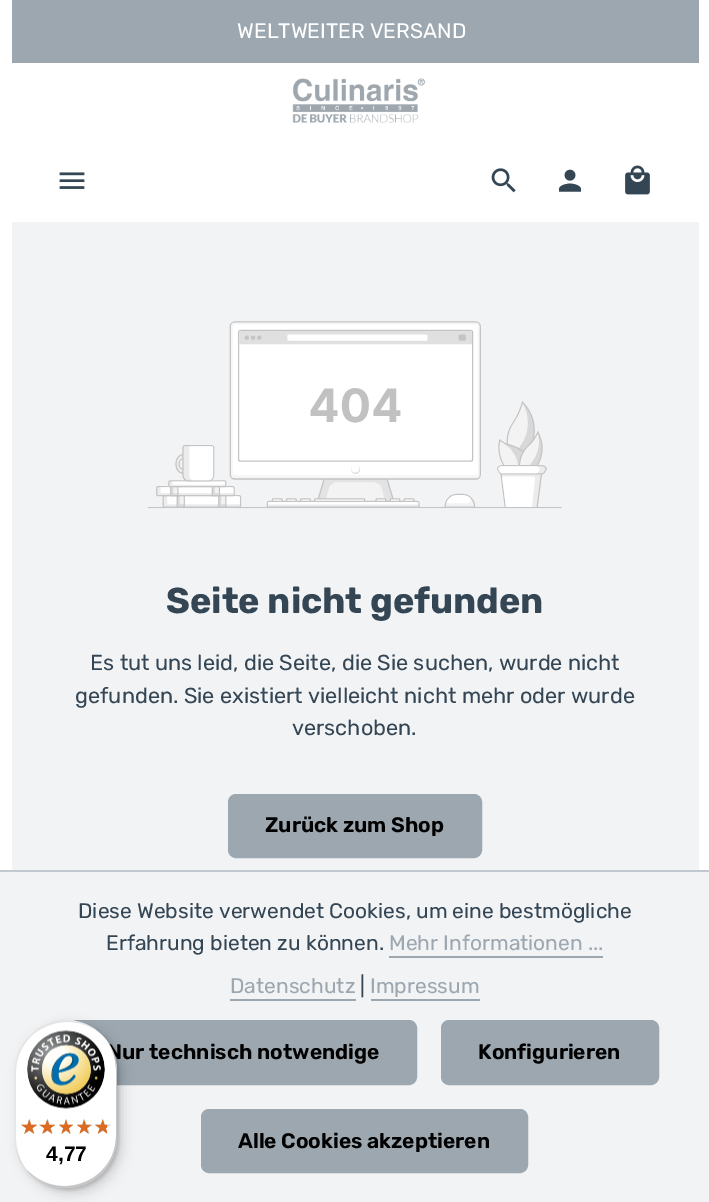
%!PS-Adobe-3.0
%%BoundingBox: 0 0 709 1202
%%LanguageLevel: 3
%%Pages: 1
%%EndComments
%%BeginProlog
/setink { 3 { 255 div 3 1 roll } repeat setrgbcolor } def
/usefont { [ exch dup neg 0 0 3 -1 roll 0 0 ] selectfont } def
/drawtext { setink usefont moveto show } def
/fillbox { setink rectfill } def
/setalpha { dup .setfillconstantalpha .setstrokeconstantalpha } def
/rrect { 5 dict begin { /r /h /w /y /x } { exch def } forall
  x r add y moveto x w add y 2 copy h add r arct x w add y h add x 1 index r arct
  x y h add x y r arct x y 2 copy exch w add exch r arct closepath end } def
/softshadow { 12 dict begin { /a /b /q /h /w /y /x } { exch def } forall gsave /was 0 def
  9 -2 -9 { dup b mul 4 div /e exch def 1 sub .425 mul 2.718 exch exp 1 add a .99 .min exch div /now exch def
    1 1 now sub 1 was sub div sub setalpha /was now def
    w h .min e 2 mul add 0 gt { x e sub y e sub w e 2 mul add h e 2 mul add
      q e add b .6 mul add w h .min 2 div e add .min 0 .max rrect fill } if } for grestore end } def
/drawimage { 5 dict begin { /h /w /y /x /name } { exch def } forall
  gsave x y translate w h scale
  w h 8 [w 0 0 h 0 0] name (r) file false 3 colorimage grestore end } def
%%EndProlog
%%BeginSetup
<< /PageSize [709 1202] /PageUsesTransparency true >> setpagedevice
%%EndSetup
%%Page: 1 1
0 .pushpdf14devicefilter
0 1202 translate 1 -1 scale
4 setmiterlimit
0 0 709 1202 255 255 255 fillbox
12 0 687 63 156 167 176 fillbox
(WELTWEITER VERSAND) 237 38 /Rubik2-Light 21 255 255 255 drawtext
(assets/img1.rgb) 292 78 134 45 drawimage
(assets/img2.rgb) 59 172 26 17 drawimage
(assets/img3.rgb) 491 168 25 25 drawimage
(assets/img4.rgb) 559 169 23 23 drawimage
(assets/img5.rgb) 625 165 25 30 drawimage
12 222 687 648 242 243 245 fillbox
(assets/img6.rgb) 147 321 416 188 drawimage
(Seite nicht gefunden) 166 613 /Rubik-Light 36 52 70 84 drawtext
(Es tut uns leid, die Seite, die Sie suchen, wurde nicht) 90 670 /Rubik2-Light 21.7 52 70 84 drawtext
(gefunden. Sie existiert vielleicht nicht mehr oder wurde) 75 703 /Rubik2-Light 21.7 52 70 84 drawtext
(verschoben.) 292 735 /Rubik2-Light 21.7 52 70 84 drawtext
156 167 176 setink
229 795 252 62 7 rrect gsave fill grestore
2 setlinewidth
stroke
(Zurück zum Shop) 265 832 /Rubik-SemiBold 21 0 0 0 drawtext
0 872 709 330 242 243 245 fillbox
0 870 709 2 193 200 207 fillbox
(Diese Website verwendet Cookies, um eine bestmögliche) 78 918 /Rubik2-Light 21 52 70 84 drawtext
(Erfahrung bieten zu können.) 106 950 /Rubik2-Light 21 52 70 84 drawtext
(Mehr Informationen ...) 389 950 /Rubik2-Light 21 156 167 176 drawtext
389 956 214 2 156 167 176 fillbox
(Datenschutz) 230 993 /Rubik2-Light 21 156 167 176 drawtext
230 999 126 2 156 167 176 fillbox
(|) 360 993 /Rubik2-Light 21 52 70 84 drawtext
(Impressum) 370 993 /Rubik2-Light 21 156 167 176 drawtext
371 999 109 2 156 167 176 fillbox
70 1021 346 63 7 rrect gsave fill grestore
stroke
(Nur technisch notwendige) 107 1059 /Rubik-SemiBold 21 0 0 0 drawtext
156 167 176 setink
442 1021 216 63 7 rrect gsave fill grestore
stroke
(Konfigurieren) 478 1059 /Rubik-SemiBold 21 0 0 0 drawtext
156 167 176 setink
202 1110 325 62 7 rrect gsave fill grestore
stroke
(Alle Cookies akzeptieren) 238 1148 /Rubik-SemiBold 21 0 0 0 drawtext
20 1025 102 168 51 6 0.15 softshadow
17 1022 102 168 51 1.5 0.15 softshadow
255 255 255 setink
15 1020 102 168 51 rrect fill
0.1 setalpha
0 0 0 setink
68 1022 moveto 82 1022 95 1028 104 1037 curveto 95 1027 81 1020 66 1020 curveto 38 1020 15 1043 15 1071 curveto 15 1137 lineto 15 1148 18 1158 24 1166 curveto 19 1158 16 1148 16 1138 curveto 16 1072 lineto 16 1044 39 1022 68 1022 curveto closepath fill
0.2 setalpha
28 1171 moveto 37 1181 51 1188 66 1188 curveto 94 1188 117 1165 117 1137 curveto 117 1071 lineto 117 1060 114 1050 108 1042 curveto 113 1050 116 1060 116 1070 curveto 116 1136 lineto 116 1164 93 1186 64 1186 curveto 50 1186 37 1180 28 1171 curveto closepath fill
50 50 50 setink
27 1170 moveto 37 1181 51 1188 66 1188 curveto 94 1188 117 1165 117 1137 curveto 117 1071 lineto 117 1056 110 1042 99 1032 curveto 110 1042 116 1055 116 1070 curveto 116 1136 lineto 116 1164 93 1187 65 1187 curveto 50 1187 37 1181 27 1170 curveto closepath fill
0.3 setalpha
255 255 255 setink
27 1170 moveto 37 1181 51 1188 66 1188 curveto 94 1188 117 1165 117 1137 curveto 117 1071 lineto 117 1056 110 1042 99 1032 curveto 110 1042 116 1055 116 1070 curveto 116 1136 lineto 116 1164 93 1187 65 1187 curveto 50 1187 37 1181 27 1170 curveto closepath fill
1 setalpha
(assets/img7.rgb) 27 1030 78 79 drawimage
(assets/img8.rgb) 21 1119 16 15 drawimage
(assets/img9.rgb) 41 1119 14 15 drawimage
(assets/img10.rgb) 59 1119 14 15 drawimage
(assets/img11.rgb) 77 1119 16 15 drawimage
(assets/img12.rgb) 95 1119 16 15 drawimage
(assets/img13.rgb) 21 1119 16 15 drawimage
(assets/img14.rgb) 39 1119 16 15 drawimage
(assets/img15.rgb) 59 1119 14 15 drawimage
(assets/img16.rgb) 77 1119 14 15 drawimage
(assets/img17.rgb) 95 1119 12 15 drawimage
(4,77) 46 1161 /LiberationSans-Bold 21 0 0 0 drawtext
.poppdf14devicefilter showpage
%%EOF
